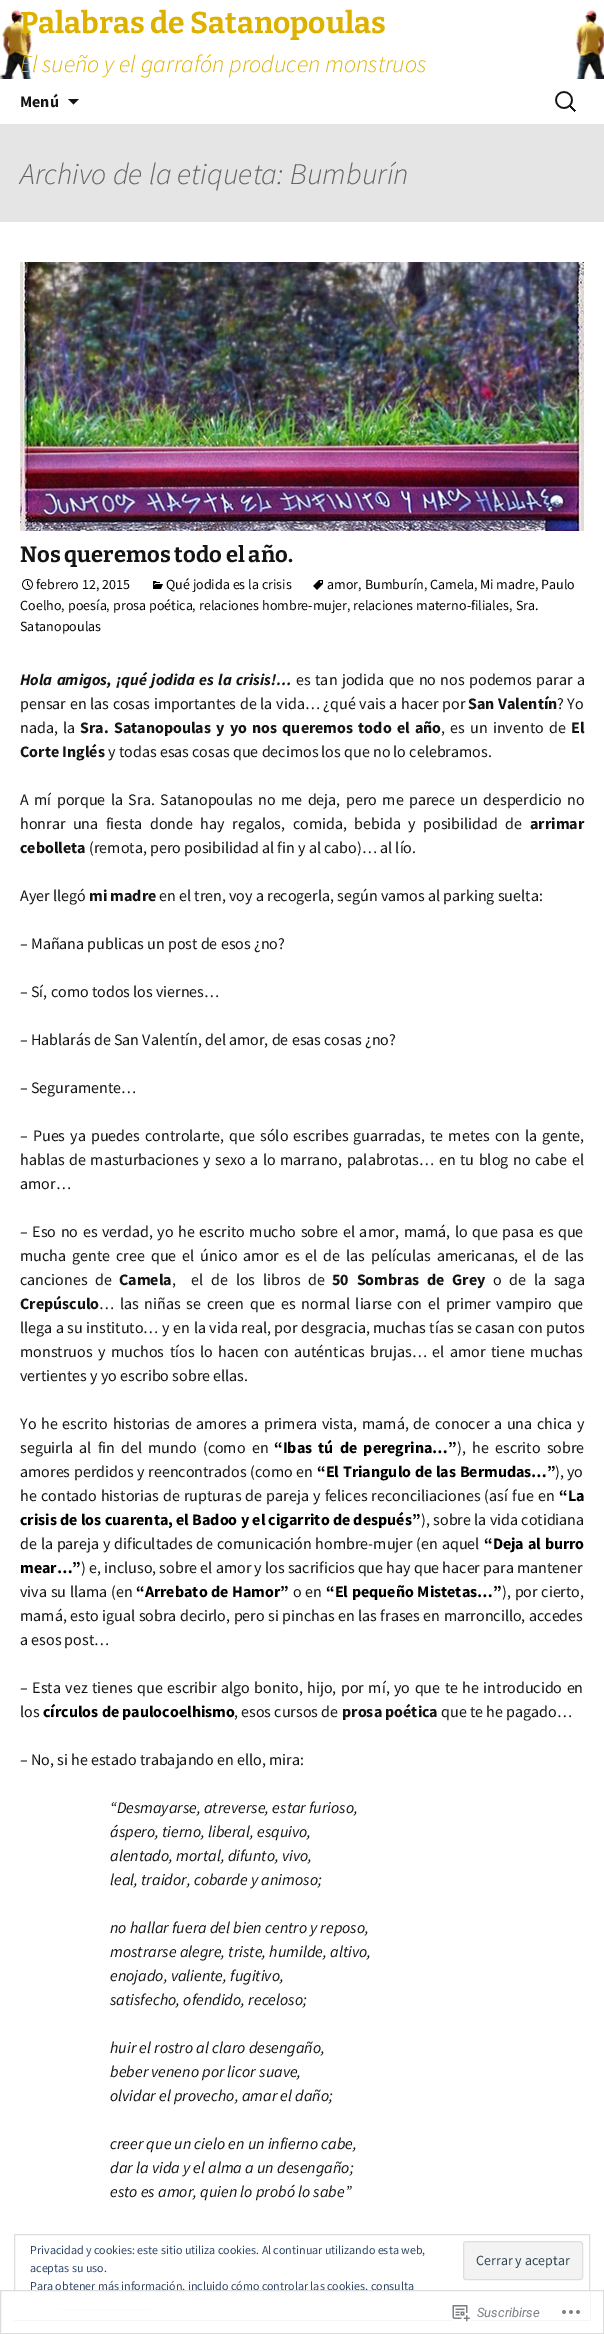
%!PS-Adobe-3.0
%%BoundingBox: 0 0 604 2334
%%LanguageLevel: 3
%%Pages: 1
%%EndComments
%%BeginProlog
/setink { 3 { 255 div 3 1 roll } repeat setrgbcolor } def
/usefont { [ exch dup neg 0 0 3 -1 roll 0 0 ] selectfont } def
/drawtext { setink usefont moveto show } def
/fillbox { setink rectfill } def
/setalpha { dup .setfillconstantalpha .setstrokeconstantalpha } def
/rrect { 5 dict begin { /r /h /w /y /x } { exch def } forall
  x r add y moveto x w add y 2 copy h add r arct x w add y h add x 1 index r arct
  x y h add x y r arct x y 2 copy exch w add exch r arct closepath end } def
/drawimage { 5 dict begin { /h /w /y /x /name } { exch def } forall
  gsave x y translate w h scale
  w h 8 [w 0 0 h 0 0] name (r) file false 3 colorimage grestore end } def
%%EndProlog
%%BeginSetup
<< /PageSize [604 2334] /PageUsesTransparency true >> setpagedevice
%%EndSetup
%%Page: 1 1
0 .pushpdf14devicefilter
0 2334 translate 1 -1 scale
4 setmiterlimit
0 0 604 2334 255 255 255 fillbox
(assets/img1.rgb) 0 9 604 70 drawimage
(Palabras de Satanopoulas) 20 33 /Bitter-Bold 30 221 177 0 drawtext
(El sueño y el garrafón producen monstruos) 20 72 /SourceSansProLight-LightItalic 24 221 177 0 drawtext
(Menú) 20 107 /SourceSansPro-Bold 16 20 20 20 drawtext
68 99 moveto 79 99 lineto 73.5 104.5 lineto closepath fill
(assets/img2.rgb) 555 91 21 21 drawimage
0 124 604 98 229 229 229 fillbox
(Archivo de la etiqueta: Bumburín) 20 184 /SourceSansProLight-LightItalic 30 99 99 99 drawtext
(assets/img3.rgb) 20 262 564 269 drawimage
(Nos queremos todo el año.) 20 562 /Bitter-Bold 22 20 20 20 drawtext
(assets/img4.rgb) 313 580 10 10 drawimage
(amor) 327 589 /SourceSansPro-Regular 14 0 0 0 drawtext
(,) 358 589 /SourceSansPro-Regular 14 20 20 20 drawtext
(Bumburín) 365 589 /SourceSansPro-Regular 14 0 0 0 drawtext
(,) 424 589 /SourceSansPro-Regular 14 20 20 20 drawtext
(Camela) 430 589 /SourceSansPro-Regular 14 0 0 0 drawtext
(,) 474 589 /SourceSansPro-Regular 14 20 20 20 drawtext
(Mi madre) 480 589 /SourceSansPro-Regular 14 0 0 0 drawtext
(,) 535 589 /SourceSansPro-Regular 14 20 20 20 drawtext
(Paulo) 541 589 /SourceSansPro-Regular 14 0 0 0 drawtext
(Coelho) 20 610 /SourceSansPro-Regular 14 0 0 0 drawtext
(,) 61 610 /SourceSansPro-Regular 14 20 20 20 drawtext
(poesía) 68 610 /SourceSansPro-Regular 14 0 0 0 drawtext
(,) 106 610 /SourceSansPro-Regular 14 20 20 20 drawtext
(prosa poética) 113 610 /SourceSansPro-Regular 14 0 0 0 drawtext
(,) 192 610 /SourceSansPro-Regular 14 20 20 20 drawtext
(relaciones hombre-mujer) 199 610 /SourceSansPro-Regular 14 0 0 0 drawtext
(,) 347 610 /SourceSansPro-Regular 14 20 20 20 drawtext
(relaciones materno-filiales) 353 610 /SourceSansPro-Regular 14 0 0 0 drawtext
(,) 509 610 /SourceSansPro-Regular 14 20 20 20 drawtext
(Sra.) 516 610 /SourceSansPro-Regular 14 0 0 0 drawtext
(Satanopoulas) 20 631 /SourceSansPro-Regular 14 0 0 0 drawtext
(assets/img5.rgb) 22 579 11 11 drawimage
(febrero 12, 2015) 36 589 /SourceSansPro-Regular 14 0 0 0 drawtext
(assets/img6.rgb) 153 581 10 8 drawimage
(Qué jodida es la crisis) 166 589 /SourceSansPro-Regular 14 0 0 0 drawtext
/SourceSansPro-BoldItalic 16 usefont
20 20 20 setink
20 685 moveto 1.25 0 32 (Hola amigos, ¡qué jodida es la crisis!…) widthshow
/SourceSansPro-Regular 16 usefont
296 685 moveto 1.25 0 32 (es tan jodida que no nos podemos parar a) widthshow
20 709 moveto 0.5 0 32 (pensar en las cosas importantes de la vida… ¿qué vais a hacer por) widthshow
/SourceSansPro-Bold 16 usefont
468 709 moveto 0.5 0 32 (San Valentín) widthshow
/SourceSansPro-Regular 16 usefont
557 709 moveto 0.5 0 32 (? Yo) widthshow
20 733 moveto 2 0 32 (nada, la) widthshow
/SourceSansPro-Bold 16 usefont
80 733 moveto 2 0 32 (Sra. Satanopoulas y yo nos queremos todo el año) widthshow
/SourceSansPro-Regular 16 usefont
441 733 moveto 2 0 32 (, es un invento de) widthshow
(El) 571 733 /SourceSansPro-Bold 16 20 20 20 drawtext
(Corte Inglés) 20 757 /SourceSansPro-Bold 16 20 20 20 drawtext
(y todas esas cosas que decimos los que no lo celebramos.) 108 757 /SourceSansPro-Regular 16 20 20 20 drawtext
20 805 moveto 2.25 0 32 (A mí porque la Sra. Satanopoulas no me deja, pero me parece un desperdicio no) widthshow
20 829 moveto 4.25 0 32 (honrar una fiesta donde hay regalos, comida, bebida y posibilidad de) widthshow
(arrimar) 530 829 /SourceSansPro-Bold 16 20 20 20 drawtext
(cebolleta) 20 853 /SourceSansPro-Bold 16 20 20 20 drawtext
(\(remota, pero posibilidad al fin y al cabo\)… al lío.) 89 853 /SourceSansPro-Regular 16 20 20 20 drawtext
(Ayer llegó) 20 901 /SourceSansPro-Regular 16 20 20 20 drawtext
(mi madre) 89 901 /SourceSansPro-Bold 16 20 20 20 drawtext
(en el tren, voy a recogerla, según vamos al parking suelta:) 159 901 /SourceSansPro-Regular 16 20 20 20 drawtext
(– Mañana publicas un post de esos ¿no?) 20 949 /SourceSansPro-Regular 16 20 20 20 drawtext
(– Sí, como todos los viernes…) 20 997 /SourceSansPro-Regular 16 20 20 20 drawtext
(– Hablarás de San Valentín, del amor, de esas cosas ¿no?) 20 1045 /SourceSansPro-Regular 16 20 20 20 drawtext
(– Seguramente…) 20 1093 /SourceSansPro-Regular 16 20 20 20 drawtext
20 1141 moveto 1.9 0 32 (– Pues ya puedes controlarte, que sólo escribes guarradas, te metes con la gente,) widthshow
20 1165 moveto 1.4 0 32 (hablas de masturbaciones y sexo a lo marrano, palabrotas… en tu blog no cabe el) widthshow
(amor…) 20 1189 /SourceSansPro-Regular 16 20 20 20 drawtext
20 1237 moveto 1.4 0 32 (– Eso no es verdad, yo he escrito mucho sobre el amor, mamá, lo que pasa es que) widthshow
20 1261 moveto 2.75 0 32 (mucha gente cree que el único amor es el de las películas americanas, el de las) widthshow
20 1285 moveto 4.5 0 32 (canciones de) widthshow
(Camela) 119 1285 /SourceSansPro-Bold 16 20 20 20 drawtext
/SourceSansPro-Regular 16 usefont
172 1285 moveto 4.5 0 32 (,  el de los libros de) widthshow
/SourceSansPro-Bold 16 usefont
332 1285 moveto 4.5 0 32 (50 Sombras de Grey) widthshow
/SourceSansPro-Regular 16 usefont
493 1285 moveto 4.5 0 32 (o de la saga) widthshow
(Crepúsculo) 20 1309 /SourceSansPro-Bold 16 20 20 20 drawtext
/SourceSansPro-Regular 16 usefont
99 1309 moveto 2.5 0 32 (… las niñas se creen que es normal liarse con el primer vampiro que) widthshow
20 1333 moveto 0.4 0 32 (llega a su instituto… y en la vida real, por desgracia, muchas tías se casan con putos) widthshow
20 1357 moveto 2.25 0 32 (monstruos y muchos tíos lo hacen con auténticas brujas… el amor tiene muchas) widthshow
(vertientes y yo escribo sobre ellas.) 20 1381 /SourceSansPro-Regular 16 20 20 20 drawtext
20 1429 moveto 1.5 0 32 (Yo he escrito historias de amores a primera vista, mamá, de conocer a una chica y) widthshow
20 1453 moveto 3 0 32 (seguirla al fin del mundo \(como en) widthshow
/SourceSansPro-Bold 16 usefont
0 0 0 setink
274 1453 moveto 3 0 32 (“Ibas tú de peregrina…”) widthshow
/SourceSansPro-Regular 16 usefont
20 20 20 setink
457 1453 moveto 3 0 32 (\), he escrito sobre) widthshow
20 1477 moveto 0.5 0 32 (amores perdidos y reencontrados \(como en) widthshow
/SourceSansPro-Bold 16 usefont
0 0 0 setink
317 1477 moveto 0.5 0 32 (“El Triangulo de las Bermudas…”) widthshow
(\), yo) 555 1477 /SourceSansPro-Regular 16 20 20 20 drawtext
20 1501 moveto 1 0 32 (he contado historias de rupturas de pareja y felices reconciliaciones \(así fue en) widthshow
(“La) 559 1501 /SourceSansPro-Bold 16 0 0 0 drawtext
20 1525 moveto 0.1 0 32 (crisis de los cuarenta, el Badoo y el cigarrito de después”) widthshow
/SourceSansPro-Regular 16 usefont
20 20 20 setink
421 1525 moveto 0.1 0 32 (\), sobre la vida cotidiana) widthshow
20 1549 moveto 0.6 0 32 (de la pareja y dificultades de comunicación hombre-mujer \(en aquel) widthshow
/SourceSansPro-Bold 16 usefont
0 0 0 setink
484 1549 moveto 0.6 0 32 (“Deja al burro) widthshow
(mear…”) 20 1573 /SourceSansPro-Bold 16 0 0 0 drawtext
(\) e, incluso, sobre el amor y los sacrificios que hay que hacer para mantener) 81 1573 /SourceSansPro-Regular 16 20 20 20 drawtext
20 1597 moveto 0.5 0 32 (viva su llama \(en) widthshow
/SourceSansPro-Bold 16 usefont
0 0 0 setink
136 1597 moveto 0.5 0 32 (“Arrebato de Hamor”) widthshow
/SourceSansPro-Regular 16 usefont
20 20 20 setink
293 1597 moveto 0.5 0 32 (o en) widthshow
/SourceSansPro-Bold 16 usefont
0 0 0 setink
326 1597 moveto 0.5 0 32 (“El pequeño Mistetas…”) widthshow
/SourceSansPro-Regular 16 usefont
20 20 20 setink
502 1597 moveto 0.5 0 32 (\), por cierto,) widthshow
20 1621 moveto 0.25 0 32 (mamá, esto igual sobra decirlo, pero si pinchas en las frases en marroncillo, accedes) widthshow
(a esos post…) 20 1645 /SourceSansPro-Regular 16 20 20 20 drawtext
20 1693 moveto 1.25 0 32 (– Esta vez tienes que escribir algo bonito, hijo, por mí, yo que te he introducido en) widthshow
(los) 20 1717 /SourceSansPro-Regular 16 20 20 20 drawtext
(círculos de paulocoelhismo) 43 1717 /SourceSansPro-Bold 16 0 0 0 drawtext
(, esos cursos de) 234 1717 /SourceSansPro-Regular 16 20 20 20 drawtext
(prosa poética) 342 1717 /SourceSansPro-Bold 16 20 20 20 drawtext
(que te he pagado…) 441 1717 /SourceSansPro-Regular 16 20 20 20 drawtext
(– No, si he estado trabajando en ello, mira:) 20 1765 /SourceSansPro-Regular 16 20 20 20 drawtext
(“Desmayarse, atreverse, estar furioso,) 110 1813 /SourceSansPro-Italic 16 20 20 20 drawtext
(áspero, tierno, liberal, esquivo,) 110 1837 /SourceSansPro-Italic 16 20 20 20 drawtext
(alentado, mortal, difunto, vivo,) 110 1861 /SourceSansPro-Italic 16 20 20 20 drawtext
(leal, traidor, cobarde y animoso;) 110 1885 /SourceSansPro-Italic 16 20 20 20 drawtext
(no hallar fuera del bien centro y reposo,) 110 1933 /SourceSansPro-Italic 16 20 20 20 drawtext
(mostrarse alegre, triste, humilde, altivo,) 110 1957 /SourceSansPro-Italic 16 20 20 20 drawtext
(enojado, valiente, fugitivo,) 110 1981 /SourceSansPro-Italic 16 20 20 20 drawtext
(satisfecho, ofendido, receloso;) 110 2005 /SourceSansPro-Italic 16 20 20 20 drawtext
(huir el rostro al claro desengaño,) 110 2053 /SourceSansPro-Italic 16 20 20 20 drawtext
(beber veneno por licor suave,) 110 2077 /SourceSansPro-Italic 16 20 20 20 drawtext
(olvidar el provecho, amar el daño;) 110 2101 /SourceSansPro-Italic 16 20 20 20 drawtext
(creer que un cielo en un infierno cabe,) 110 2149 /SourceSansPro-Italic 16 20 20 20 drawtext
(dar la vida y el alma a un desengaño;) 110 2173 /SourceSansPro-Italic 16 20 20 20 drawtext
(esto es amor, quien lo probó lo sabe”) 110 2197 /SourceSansPro-Italic 16 20 20 20 drawtext
222 222 222 setink
14.5 2234.5 575 85 rectstroke
(Privacidad y cookies: este sitio utiliza cookies. Al continuar utilizando esta web,) 30 2254 /SourceSansPro-Regular 12 46 68 103 drawtext
243 243 243 setink
463.5 2241.5 119 38 2.5 rrect gsave fill grestore
222 222 222 setink
stroke
(Cerrar y aceptar) 476 2265 /SourceSansPro-Regular 14 46 68 83 drawtext
(aceptas su uso.) 30 2272 /SourceSansPro-Regular 12 46 68 103 drawtext
(Para obtener más información, incluido cómo controlar las cookies, consulta) 30 2290 /SourceSansPro-Regular 12 46 68 103 drawtext
58 2309 93 1 46 68 103 fillbox
0.98 setalpha
14 2290 576 30 255 255 255 fillbox
220 220 222 setink
0.5 2290.5 603 43 rectstroke
1 setalpha
(assets/img7.rgb) 452 2305 18 17 drawimage
(Suscribirse) 477 2317 /Roboto-Italic 13 123 127 133 drawtext
(assets/img8.rgb) 562 2310 18 4 drawimage
.poppdf14devicefilter showpage
%%EOF
